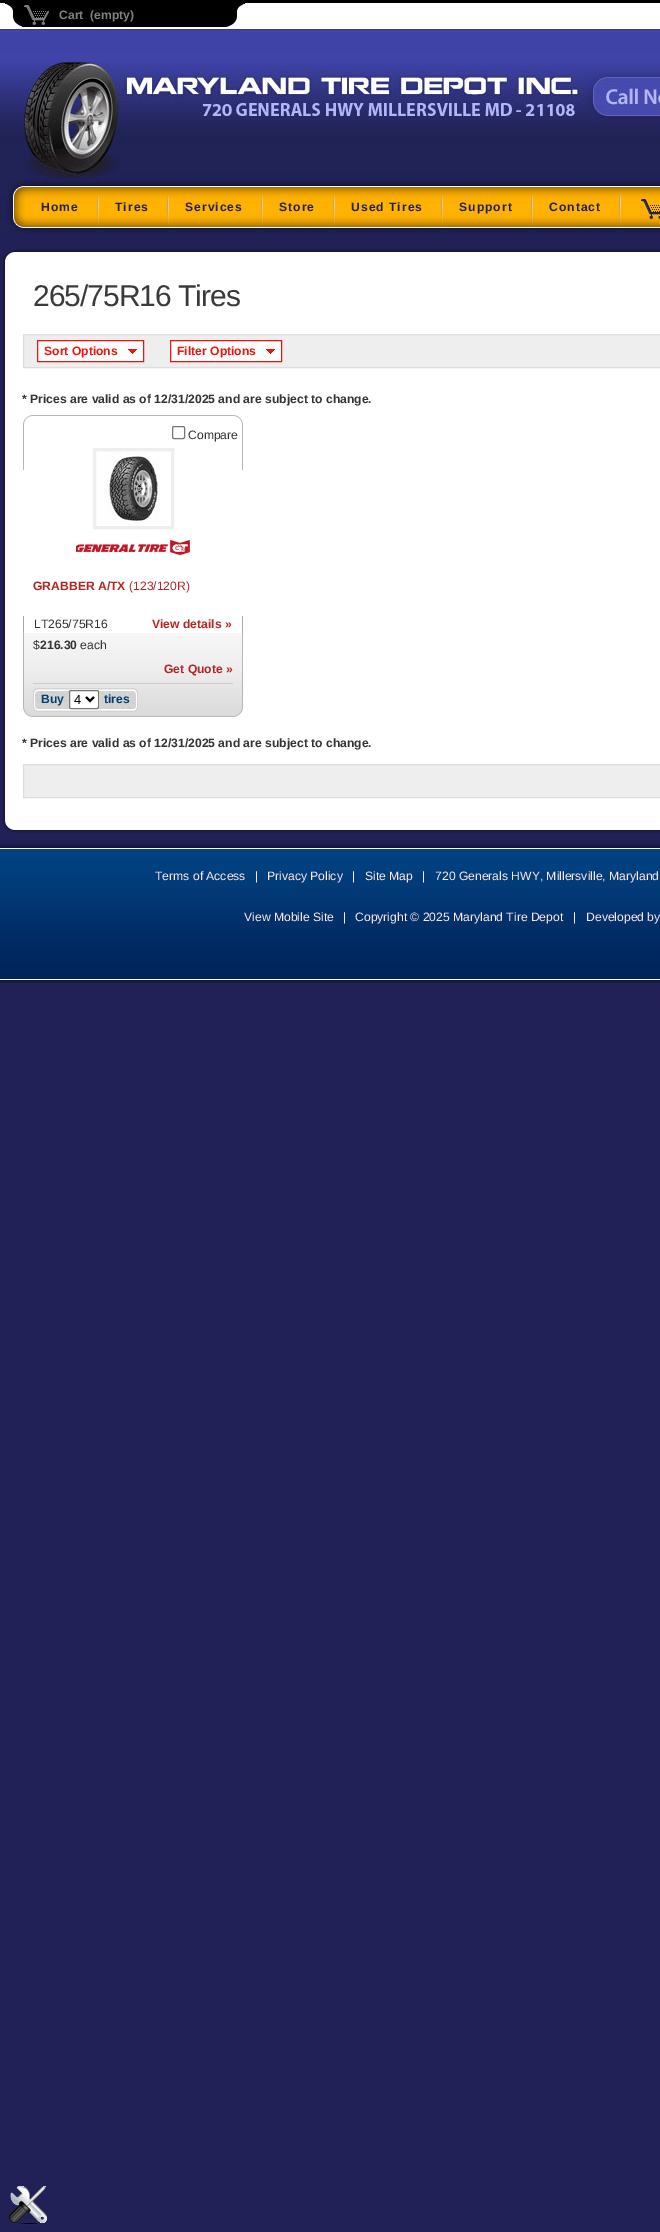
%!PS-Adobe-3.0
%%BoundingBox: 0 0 660 2232
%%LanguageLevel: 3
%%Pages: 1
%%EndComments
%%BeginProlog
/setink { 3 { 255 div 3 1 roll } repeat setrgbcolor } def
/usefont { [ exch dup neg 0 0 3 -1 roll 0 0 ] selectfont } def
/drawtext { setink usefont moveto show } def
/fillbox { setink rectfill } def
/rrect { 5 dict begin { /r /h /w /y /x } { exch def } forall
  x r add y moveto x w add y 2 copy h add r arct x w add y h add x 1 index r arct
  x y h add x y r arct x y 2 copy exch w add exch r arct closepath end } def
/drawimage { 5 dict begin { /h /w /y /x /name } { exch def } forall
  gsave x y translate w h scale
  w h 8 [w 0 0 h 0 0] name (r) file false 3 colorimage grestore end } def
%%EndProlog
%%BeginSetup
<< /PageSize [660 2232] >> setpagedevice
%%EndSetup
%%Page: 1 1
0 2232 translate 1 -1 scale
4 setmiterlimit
0 0 660 2232 33 33 87 fillbox
(assets/img1.rgb) 0 3 660 16 drawimage
0 0 660 3 0 0 0 fillbox
0 19 660 10 255 255 255 fillbox
(assets/img2.rgb) 5 3 240 24 drawimage
(Cart  \(empty\)) 59 19 /LiberationSans-Bold 12.15 128 128 128 drawtext
(assets/img3.rgb) 0 29 660 205 drawimage
33 33 87 setink
41 211 moveto 1 0 (Home) ashow
(assets/img4.rgb) 97 194 2 31 drawimage
115 211 moveto 1 0 (Tires) ashow
(assets/img4.rgb) 167 194 2 31 drawimage
185 211 moveto 1 0 (Services) ashow
(assets/img4.rgb) 261 194 2 31 drawimage
279 211 moveto 1 0 (Store) ashow
(assets/img4.rgb) 333 194 2 31 drawimage
351 211 moveto 1 0 (Used Tires) ashow
(assets/img5.rgb) 441 194 3 31 drawimage
459 211 moveto 1 0 (Support) ashow
(assets/img4.rgb) 531 194 2 31 drawimage
549 211 moveto 1 0 (Contact) ashow
(assets/img6.rgb) 619 193 41 32 drawimage
(assets/img7.rgb) 2 249 658 14 drawimage
(assets/img8.rgb) 2 263 658 556 drawimage
/LiberationSans-Regular 30 usefont
58 58 58 setink
33 306 moveto -1 0 (265/75R16 Tires) ashow
238 238 238 setink
23.5 334.5 moveto 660.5 334.5 lineto 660.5 367.5 lineto 23.5 367.5 lineto closepath gsave fill grestore
221 221 221 setink
stroke
38 341 105 20 255 255 255 fillbox
(assets/img9.rgb) 128 349 9 5 drawimage
238 20 14 setink
37.5 340.5 106 21 rectstroke
(Sort Options) 44 355 /LiberationSans-Bold 12.15 238 20 14 drawtext
171 341 110 20 255 255 255 fillbox
(assets/img9.rgb) 266 349 9 5 drawimage
238 20 14 setink
170.5 340.5 111 21 rectstroke
(Filter Options) 177 355 /LiberationSans-Bold 12.15 238 20 14 drawtext
(* Prices are valid as of 12/31/2025 and are subject to change.) 22 403 /LiberationSans-Bold 12.15 51 51 51 drawtext
(assets/img10.rgb) 23 415 220 55 drawimage
118 118 118 setink
172.5 426.5 12 12 1.5 rrect stroke
(Compare) 188 439 /LiberationSans-Regular 12.15 51 51 51 drawtext
(assets/img11.rgb) 104 452 56 71 drawimage
238 238 238 setink
3 setlinewidth
94.5 449.5 78 78 rectstroke
(assets/img12.rgb) 76 539 114 17 drawimage
(GRABBER A/TX) 33 590 /LiberationSans-Bold 12.15 179 37 36 drawtext
(\(123/120R\)) 129 590 /LiberationSans-Regular 12.15 179 37 36 drawtext
23 616 1 17 170 170 170 fillbox
(LT265/75R16) 34 628 /LiberationSans-Regular 12.15 51 51 51 drawtext
242 616 1 17 170 170 170 fillbox
(View details ») 152 628 /LiberationSans-Bold 12.15 179 37 36 drawtext
(assets/img13.rgb) 23 633 220 84 drawimage
($) 33 649 /LiberationSans-Regular 12.15 51 51 51 drawtext
(216.30) 40 649 /LiberationSans-Bold 12.15 51 51 51 drawtext
(each) 80 649 /LiberationSans-Regular 12.15 51 51 51 drawtext
(Get Quote ») 164 673 /LiberationSans-Bold 12.15 179 37 36 drawtext
33 683 200 1 204 204 204 fillbox
(assets/img14.rgb) 33 688 36 24 drawimage
(Buy) 41 703 /LiberationSans-Bold 12.15 3 62 115 drawtext
(assets/img15.rgb) 69 688 30 24 drawimage
255 255 255 setink
69.5 690.5 29 18 1.5 rrect gsave fill grestore
118 118 118 setink
1 setlinewidth
stroke
0 0 0 setink
2 setlinewidth
86 697 moveto 90 701 lineto 94 697 lineto stroke
(4) 74 704 /LiberationSans-Regular 13 0 0 0 drawtext
(assets/img16.rgb) 99 688 39 24 drawimage
(tires) 104 703 /LiberationSans-Bold 12.15 3 62 115 drawtext
(* Prices are valid as of 12/31/2025 and are subject to change.) 22 747 /LiberationSans-Bold 12.15 51 51 51 drawtext
238 238 238 setink
23.5 764.5 moveto 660.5 764.5 lineto 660.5 797.5 lineto 23.5 797.5 lineto closepath gsave fill grestore
221 221 221 setink
1 setlinewidth
stroke
(assets/img17.rgb) 2 819 658 14 drawimage
(assets/img18.rgb) 0 844 660 139 drawimage
(Terms of Access) 155 880 /LiberationSans-Regular 12.15 255 232 232 drawtext
(|) 255 880 /LiberationSans-Regular 12.15 255 232 232 drawtext
(Privacy Policy) 267 880 /LiberationSans-Regular 12.15 255 232 232 drawtext
(|) 352 880 /LiberationSans-Regular 12.15 255 232 232 drawtext
(Site Map) 365 880 /LiberationSans-Regular 12.15 255 232 232 drawtext
(|) 422 880 /LiberationSans-Regular 12.15 255 232 232 drawtext
(720 Generals HWY, Millersville, Maryland) 435 880 /LiberationSans-Regular 12.15 255 232 232 drawtext
(View Mobile Site) 244 921 /LiberationSans-Regular 12.15 255 232 232 drawtext
(|) 343 921 /LiberationSans-Regular 12.15 255 232 232 drawtext
(Copyright © 2025 Maryland Tire Depot) 355 921 /LiberationSans-Regular 12.15 255 232 232 drawtext
(|) 573 921 /LiberationSans-Regular 12.15 255 232 232 drawtext
(Developed by) 586 921 /LiberationSans-Regular 12.15 255 232 232 drawtext
(assets/img19.rgb) 8 2186 39 39 drawimage
showpage
%%EOF
